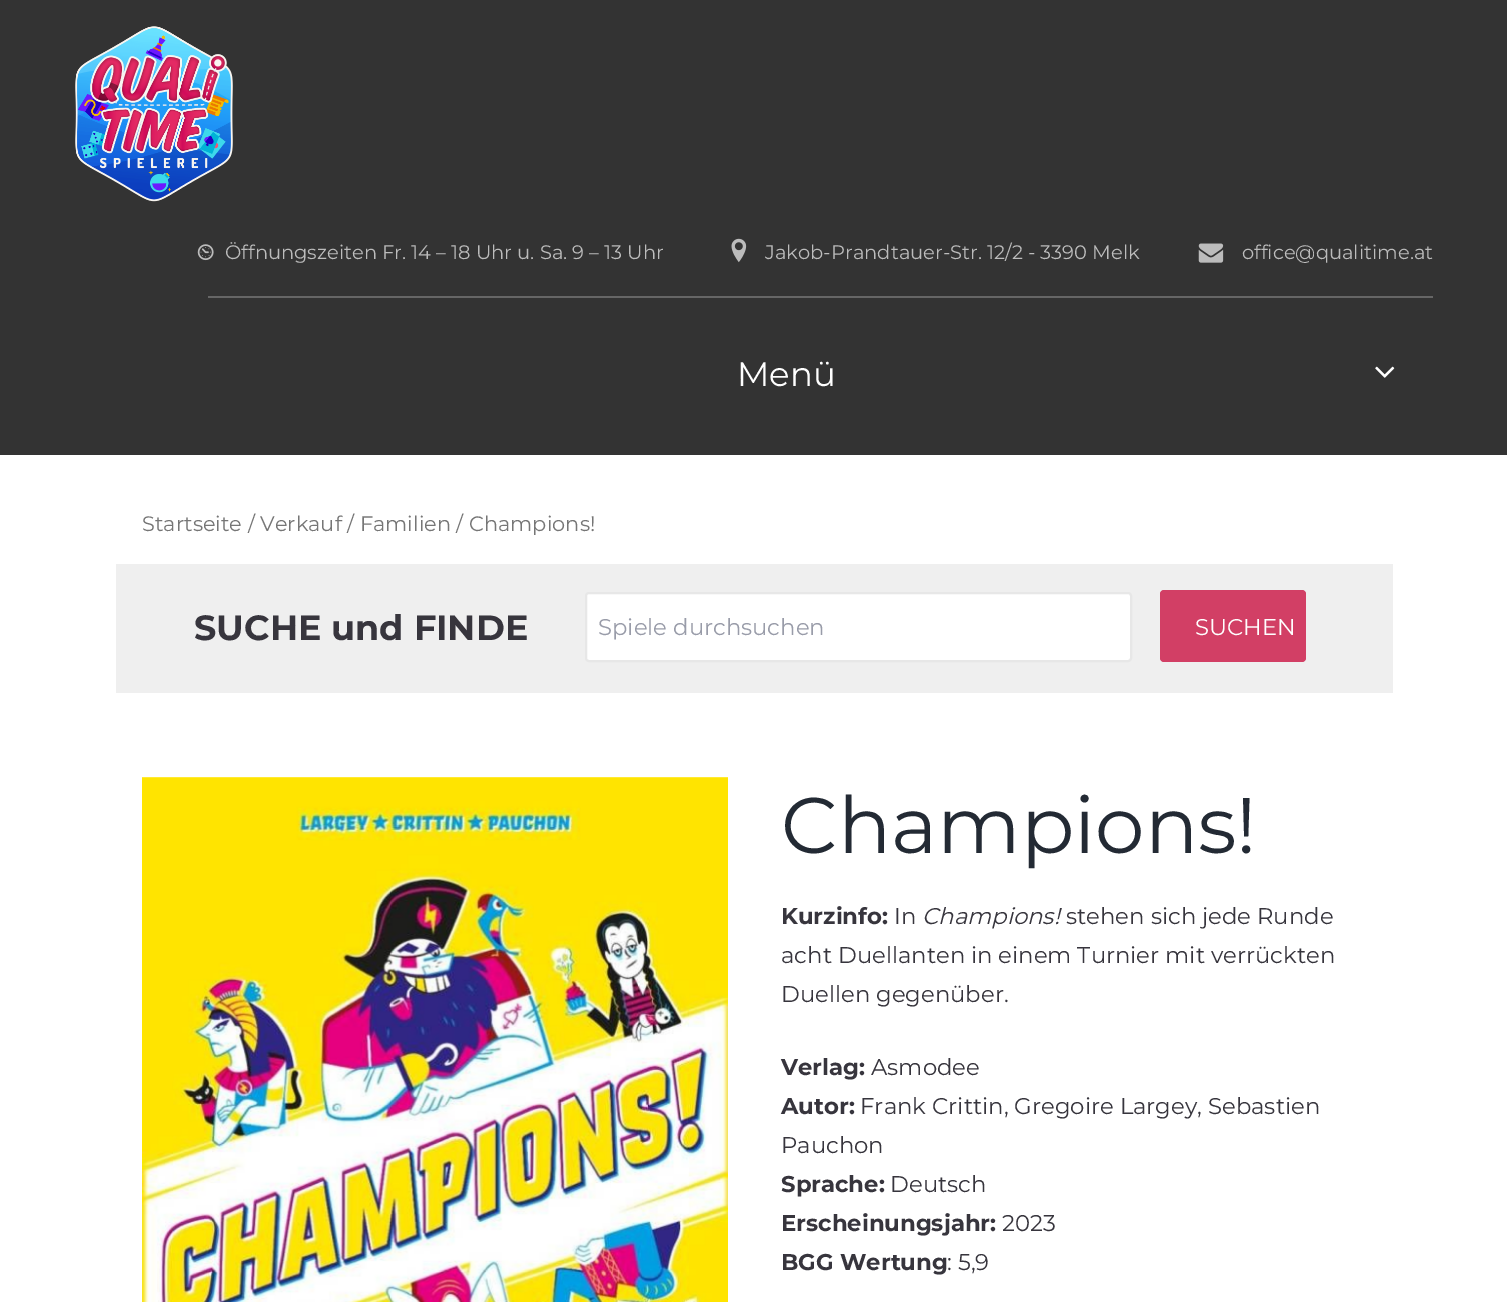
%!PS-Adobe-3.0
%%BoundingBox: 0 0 1507 1302
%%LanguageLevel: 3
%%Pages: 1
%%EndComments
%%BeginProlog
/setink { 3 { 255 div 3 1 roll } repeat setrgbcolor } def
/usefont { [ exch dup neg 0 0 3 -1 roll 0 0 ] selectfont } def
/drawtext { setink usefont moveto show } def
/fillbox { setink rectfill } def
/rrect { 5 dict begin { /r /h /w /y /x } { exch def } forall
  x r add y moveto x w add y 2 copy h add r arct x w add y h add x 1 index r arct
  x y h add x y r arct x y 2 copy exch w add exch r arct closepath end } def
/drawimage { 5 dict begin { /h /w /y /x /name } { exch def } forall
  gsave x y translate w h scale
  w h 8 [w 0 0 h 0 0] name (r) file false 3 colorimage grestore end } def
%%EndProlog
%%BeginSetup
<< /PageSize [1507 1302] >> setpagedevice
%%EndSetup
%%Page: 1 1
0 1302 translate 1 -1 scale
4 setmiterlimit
0 0 1507 1302 255 255 255 fillbox
0 0 1507 455 51 51 51 fillbox
(assets/img1.rgb) 75 26 158 176 drawimage
(assets/img2.rgb) 197 244 17 17 drawimage
(Öffnungszeiten Fr. 14 – 18 Uhr u. Sa. 9 – 13 Uhr) 225 259 /Montserrat-Regular 19.5 188 188 188 drawtext
(assets/img3.rgb) 731 238 16 25 drawimage
(Jakob-Prandtauer-Str. 12/2 - 3390 Melk) 765 259 /Montserrat-Regular 19.5 188 188 188 drawtext
(assets/img4.rgb) 1198 243 26 20 drawimage
(office@qualitime.at) 1242 259 /Montserrat-Regular 19.5 188 188 188 drawtext
208 296 1225 2 102 102 102 fillbox
(Menü) 737 386 /Montserrat-Regular 34 255 255 255 drawtext
(assets/img5.rgb) 1375 366 20 12 drawimage
(Startseite / Verkauf / Familien / Champions!) 142 531 /Montserrat-Regular 20.9 118 118 118 drawtext
116 564 1277 129 239 239 239 fillbox
(SUCHE und FINDE) 194 640 /Montserrat-Bold 35 55 53 61 drawtext
255 255 255 setink
586 593 545 68 3 rrect gsave fill grestore
231 231 231 setink
2 setlinewidth
stroke
(Spiele durchsuchen) 598 635 /Montserrat-Regular 22.75 153 156 169 drawtext
210 63 101 setink
1160 590 146 72 4 rrect fill
(SUCHEN) 1195 635 /Montserrat-Regular 22.75 255 255 255 drawtext
(assets/img6.rgb) 142 777 586 525 drawimage
(Champions!) 781 853 /Montserrat-Regular 78.75 35 42 52 drawtext
(Kurzinfo:) 781 924 /Montserrat-Bold 22.75 55 53 61 drawtext
(In) 894 924 /Montserrat-Regular 22.75 55 53 61 drawtext
(Champions!) 922 924 /Montserrat-Italic 22.75 55 53 61 drawtext
(stehen sich jede Runde) 1066 924 /Montserrat-Regular 22.75 55 53 61 drawtext
(acht Duellanten in einem Turnier mit verrückten) 781 963 /Montserrat-Regular 22.75 55 53 61 drawtext
(Duellen gegenüber.) 781 1002 /Montserrat-Regular 22.75 55 53 61 drawtext
(Verlag:) 781 1075 /Montserrat-Bold 22.75 55 53 61 drawtext
(Asmodee) 871 1075 /Montserrat-Regular 22.75 55 53 61 drawtext
(Autor:) 781 1114 /Montserrat-Bold 22.75 55 53 61 drawtext
(Frank Crittin, Gregoire Largey, Sebastien) 860 1114 /Montserrat-Regular 22.75 55 53 61 drawtext
(Pauchon) 781 1153 /Montserrat-Regular 22.75 55 53 61 drawtext
(Sprache:) 781 1192 /Montserrat-Bold 22.75 55 53 61 drawtext
(Deutsch) 890 1192 /Montserrat-Regular 22.75 55 53 61 drawtext
(Erscheinungsjahr:) 781 1231 /Montserrat-Bold 22.75 55 53 61 drawtext
(2023) 1002 1231 /Montserrat-Regular 22.75 55 53 61 drawtext
(BGG Wertung) 781 1270 /Montserrat-Bold 22.75 55 53 61 drawtext
(: 5,9) 947 1270 /Montserrat-Regular 22.75 55 53 61 drawtext
showpage
%%EOF
